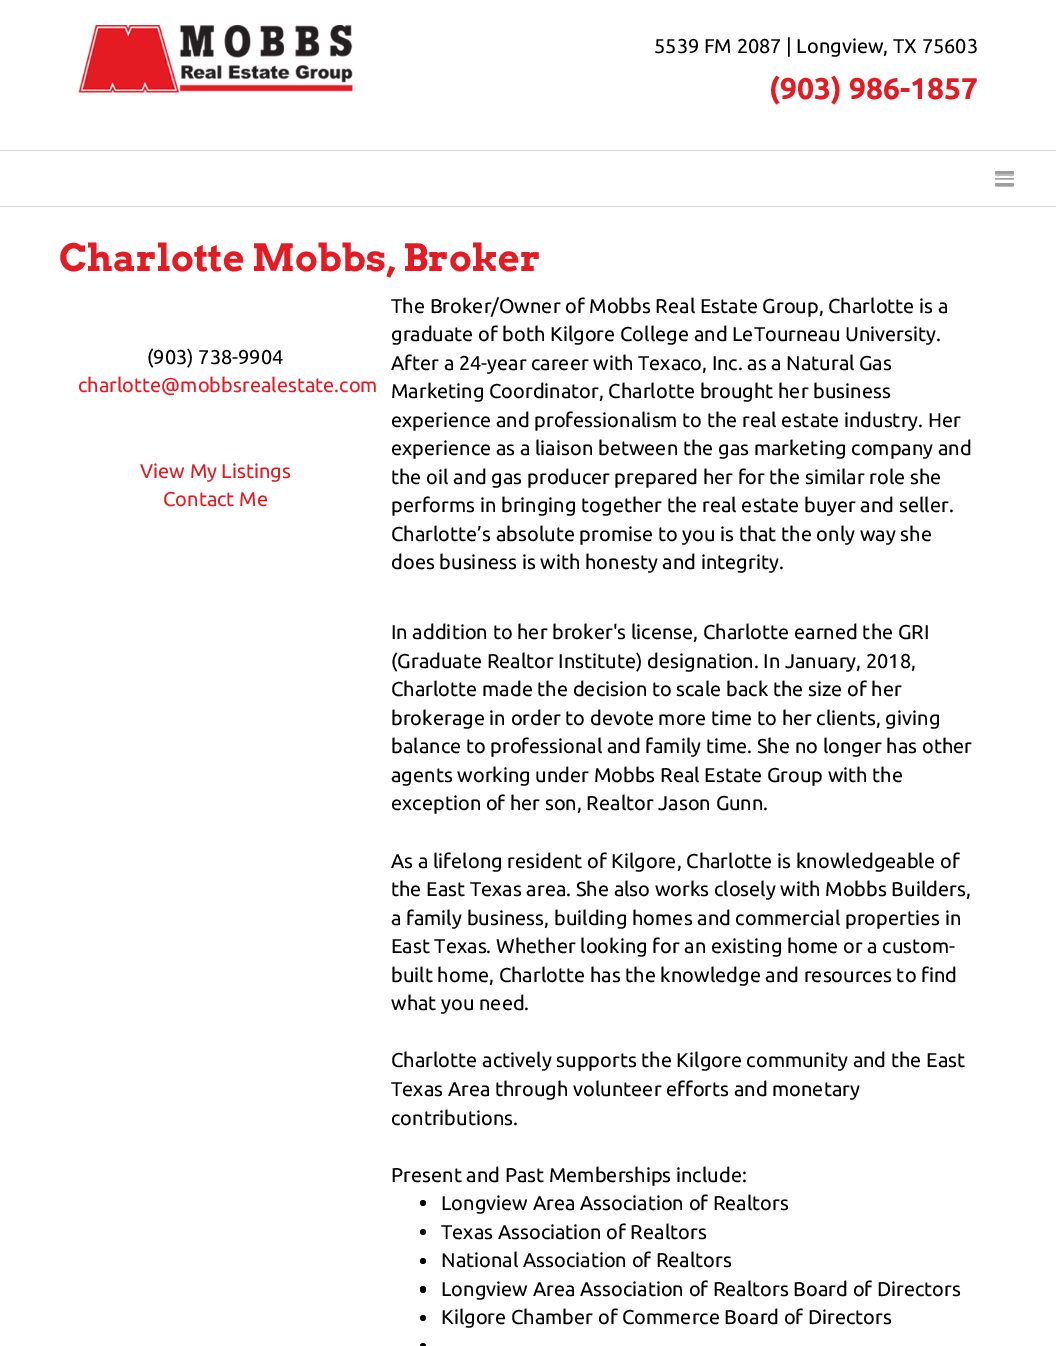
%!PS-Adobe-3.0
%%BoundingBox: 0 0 1056 1346
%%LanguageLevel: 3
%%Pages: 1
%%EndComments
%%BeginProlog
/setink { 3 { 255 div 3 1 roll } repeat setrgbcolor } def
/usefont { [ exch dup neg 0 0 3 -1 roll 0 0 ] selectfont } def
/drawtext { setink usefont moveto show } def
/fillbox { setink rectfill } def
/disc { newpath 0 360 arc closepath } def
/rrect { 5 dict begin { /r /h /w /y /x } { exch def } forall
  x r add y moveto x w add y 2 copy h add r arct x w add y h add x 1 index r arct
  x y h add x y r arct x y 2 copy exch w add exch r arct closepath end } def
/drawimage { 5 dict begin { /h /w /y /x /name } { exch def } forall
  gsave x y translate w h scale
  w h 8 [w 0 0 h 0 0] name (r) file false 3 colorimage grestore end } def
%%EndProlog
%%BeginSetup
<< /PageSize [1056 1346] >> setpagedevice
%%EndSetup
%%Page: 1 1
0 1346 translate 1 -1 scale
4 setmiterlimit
0 0 1056 1346 255 255 255 fillbox
(assets/img1.rgb) 78 25 275 68 drawimage
(5539 FM 2087 | Longview, TX 75603) 654 53 /Ubuntu-Regular 20 0 0 0 drawtext
(\(903\) 986-1857) 769 99 /Ubuntu-Bold 30 229 27 36 drawtext
0 150 1056 1 212 212 212 fillbox
0 206 1056 1 212 212 212 fillbox
191 191 191 setink
995.5 173.5 moveto 995 175 lineto 995.5 176.5 998 176 999 176 curveto 1010 176 lineto 1011 176 1013.5 176.5 1014 175 curveto 1014 174.5 1014 173.5 1013.5 173.5 curveto 1013 174 996 174 995.5 173.5 curveto closepath fill
158 157 157 setink
995 171 19 3 1.5 rrect fill
191 191 191 setink
995 179 19 1 0.5 rrect fill
158 157 157 setink
995 178 19 1 0.5 rrect fill
191 191 191 setink
995.5 184.5 moveto 993 187 998.5 187 999 187 curveto 1010 187 lineto 1011 187 1013.5 187.5 1014 186 curveto 1013.5 184.5 lineto 1013 185 lineto 1011.5 185.5 996 185.5 995.5 184.5 curveto closepath fill
158 157 157 setink
995 183 19 3 1.5 rrect fill
(Charlotte Mobbs, Broker) 59 271 /Arvo-Bold 37.5 229 27 36 drawtext
(\(903\) 738-9904) 147 364 /Ubuntu-Regular 20 0 0 0 drawtext
(charlotte@mobbsrealestate.com) 78 392 /Ubuntu-Regular 20 229 27 36 drawtext
(View My Listings) 140 478 /Ubuntu-Regular 20 229 27 36 drawtext
(Contact Me) 163 506 /Ubuntu-Regular 20 229 27 36 drawtext
(The Broker/Owner of Mobbs Real Estate Group, Charlotte is a) 391 313 /Ubuntu-Regular 20 0 0 0 drawtext
(graduate of both Kilgore College and LeTourneau University.) 391 341 /Ubuntu-Regular 20 0 0 0 drawtext
(After a 24-year career with Texaco, Inc. as a Natural Gas) 391 370 /Ubuntu-Regular 20 0 0 0 drawtext
(Marketing Coordinator, Charlotte brought her business) 391 398 /Ubuntu-Regular 20 0 0 0 drawtext
(experience and professionalism to the real estate industry. Her) 391 427 /Ubuntu-Regular 20 0 0 0 drawtext
(experience as a liaison between the gas marketing company and) 391 455 /Ubuntu-Regular 20 0 0 0 drawtext
(the oil and gas producer prepared her for the similar role she) 391 484 /Ubuntu-Regular 20 0 0 0 drawtext
(performs in bringing together the real estate buyer and seller.) 391 512 /Ubuntu-Regular 20 0 0 0 drawtext
(Charlotte’s absolute promise to you is that the only way she) 391 541 /Ubuntu-Regular 20 0 0 0 drawtext
(does business is with honesty and integrity.) 391 569 /Ubuntu-Regular 20 0 0 0 drawtext
(In addition to her broker's license, Charlotte earned the GRI) 391 639 /Ubuntu-Regular 20 0 0 0 drawtext
(\(Graduate Realtor Institute\) designation. In January, 2018,) 391 668 /Ubuntu-Regular 20 0 0 0 drawtext
(Charlotte made the decision to scale back the size of her) 391 696 /Ubuntu-Regular 20 0 0 0 drawtext
(brokerage in order to devote more time to her clients, giving) 391 725 /Ubuntu-Regular 20 0 0 0 drawtext
(balance to professional and family time. She no longer has other) 391 753 /Ubuntu-Regular 20 0 0 0 drawtext
(agents working under Mobbs Real Estate Group with the) 391 782 /Ubuntu-Regular 20 0 0 0 drawtext
(exception of her son, Realtor Jason Gunn.) 391 810 /Ubuntu-Regular 20 0 0 0 drawtext
(As a lifelong resident of Kilgore, Charlotte is knowledgeable of) 391 868 /Ubuntu-Regular 20 0 0 0 drawtext
(the East Texas area. She also works closely with Mobbs Builders,) 391 896 /Ubuntu-Regular 20 0 0 0 drawtext
(a family business, building homes and commercial properties in) 391 925 /Ubuntu-Regular 20 0 0 0 drawtext
(East Texas. Whether looking for an existing home or a custom-) 391 953 /Ubuntu-Regular 20 0 0 0 drawtext
(built home, Charlotte has the knowledge and resources to find) 391 982 /Ubuntu-Regular 20 0 0 0 drawtext
(what you need.) 391 1010 /Ubuntu-Regular 20 0 0 0 drawtext
(Charlotte actively supports the Kilgore community and the East) 391 1067 /Ubuntu-Regular 20 0 0 0 drawtext
(Texas Area through volunteer efforts and monetary) 391 1096 /Ubuntu-Regular 20 0 0 0 drawtext
(contributions.) 391 1125 /Ubuntu-Regular 20 0 0 0 drawtext
(Present and Past Memberships include:) 391 1182 /Ubuntu-Regular 20 0 0 0 drawtext
423 1203 3 disc fill
(Longview Area Association of Realtors) 441 1210 /Ubuntu-Regular 20 0 0 0 drawtext
423 1232 3 disc fill
(Texas Association of Realtors) 441 1239 /Ubuntu-Regular 20 0 0 0 drawtext
423 1261 3 disc fill
(National Association of Realtors) 441 1267 /Ubuntu-Regular 20 0 0 0 drawtext
420 1286 6 7 3 rrect fill
(Longview Area Association of Realtors Board of Directors) 441 1296 /Ubuntu-Regular 20 0 0 0 drawtext
423 1318 3 disc fill
(Kilgore Chamber of Commerce Board of Directors) 441 1324 /Ubuntu-Regular 20 0 0 0 drawtext
423 1346 3 disc fill
showpage
%%EOF
